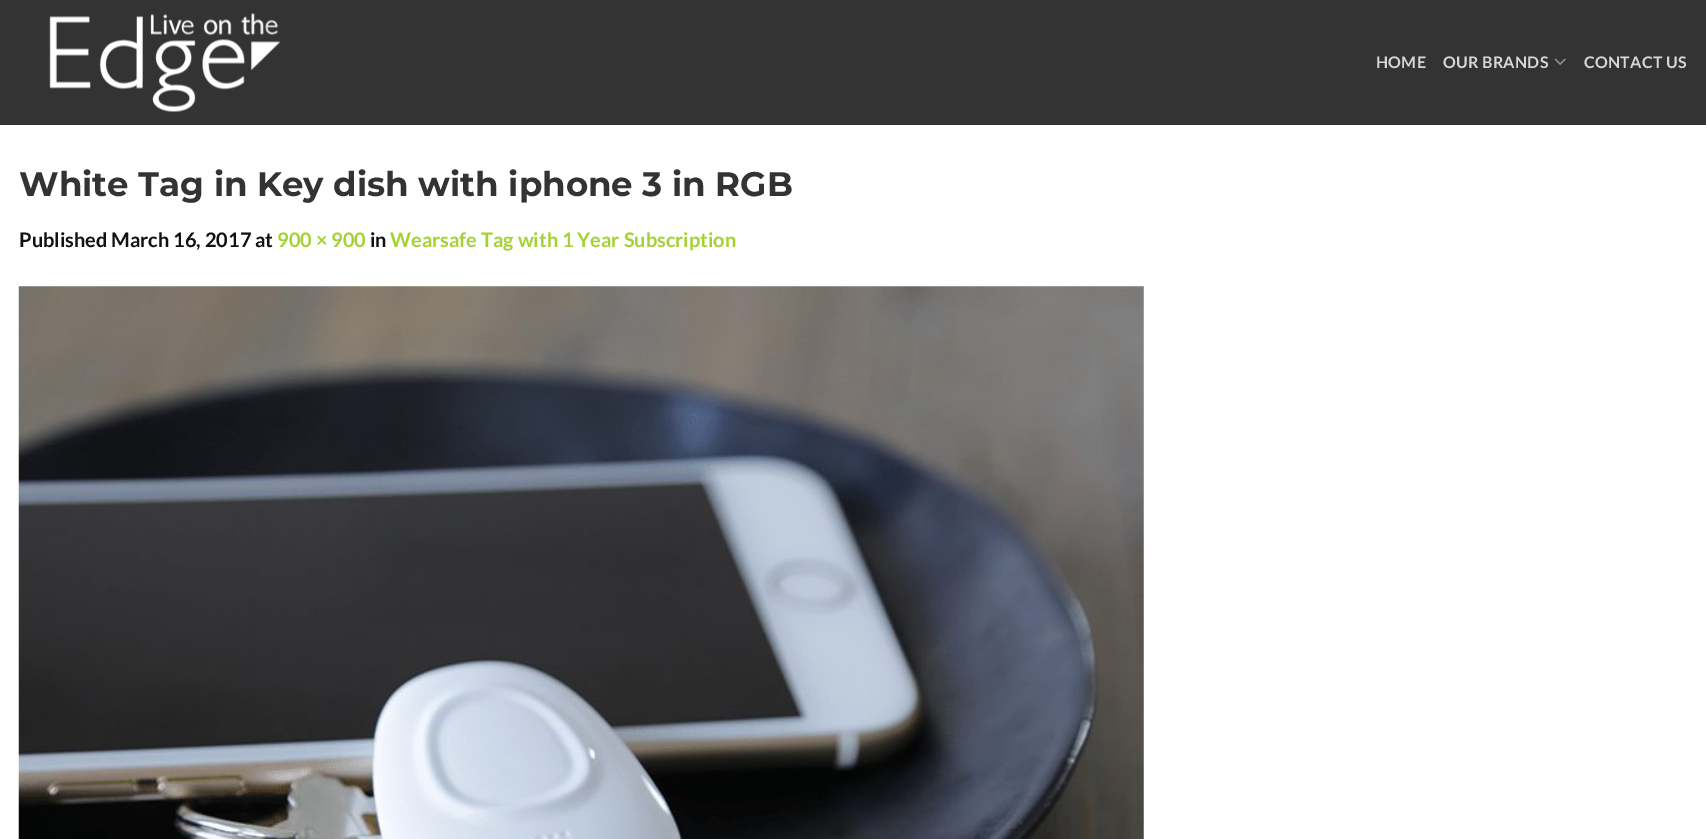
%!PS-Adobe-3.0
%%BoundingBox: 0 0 1706 839
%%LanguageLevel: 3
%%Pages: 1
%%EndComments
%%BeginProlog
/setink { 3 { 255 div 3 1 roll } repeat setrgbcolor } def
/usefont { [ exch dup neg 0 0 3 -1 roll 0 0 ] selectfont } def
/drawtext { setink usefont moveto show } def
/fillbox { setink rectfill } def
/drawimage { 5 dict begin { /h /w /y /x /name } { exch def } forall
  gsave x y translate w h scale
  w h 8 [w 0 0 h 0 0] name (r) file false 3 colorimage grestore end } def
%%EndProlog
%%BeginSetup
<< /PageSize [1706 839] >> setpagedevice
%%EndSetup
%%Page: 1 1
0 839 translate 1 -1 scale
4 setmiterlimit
0 0 1706 839 255 255 255 fillbox
0 0 1706 125 51 51 51 fillbox
(assets/img1.rgb) 49 13 232 99 drawimage
/Lato-Bold 16 usefont
214 214 214 setink
1376 68 moveto 0.25 0 (HOME) ashow
1443 68 moveto 0.25 0 (OUR BRANDS) ashow
(assets/img2.rgb) 1554 58 12 7 drawimage
1584 68 moveto 0.25 0 (CONTACT US) ashow
(White Tag in Key dish with iphone 3 in RGB) 19 196 /Montserrat-Bold 34 51 51 51 drawtext
(Published March 16, 2017 at) 19 247 /Lato-Bold 20 17 17 17 drawtext
(900 × 900) 277 247 /Lato-Bold 20 164 210 50 drawtext
(in) 370 247 /Lato-Bold 20 17 17 17 drawtext
(Wearsafe Tag with 1 Year Subscription) 390 247 /Lato-Bold 20 164 210 50 drawtext
(assets/img3.rgb) 18 286 1126 553 drawimage
showpage
%%EOF
